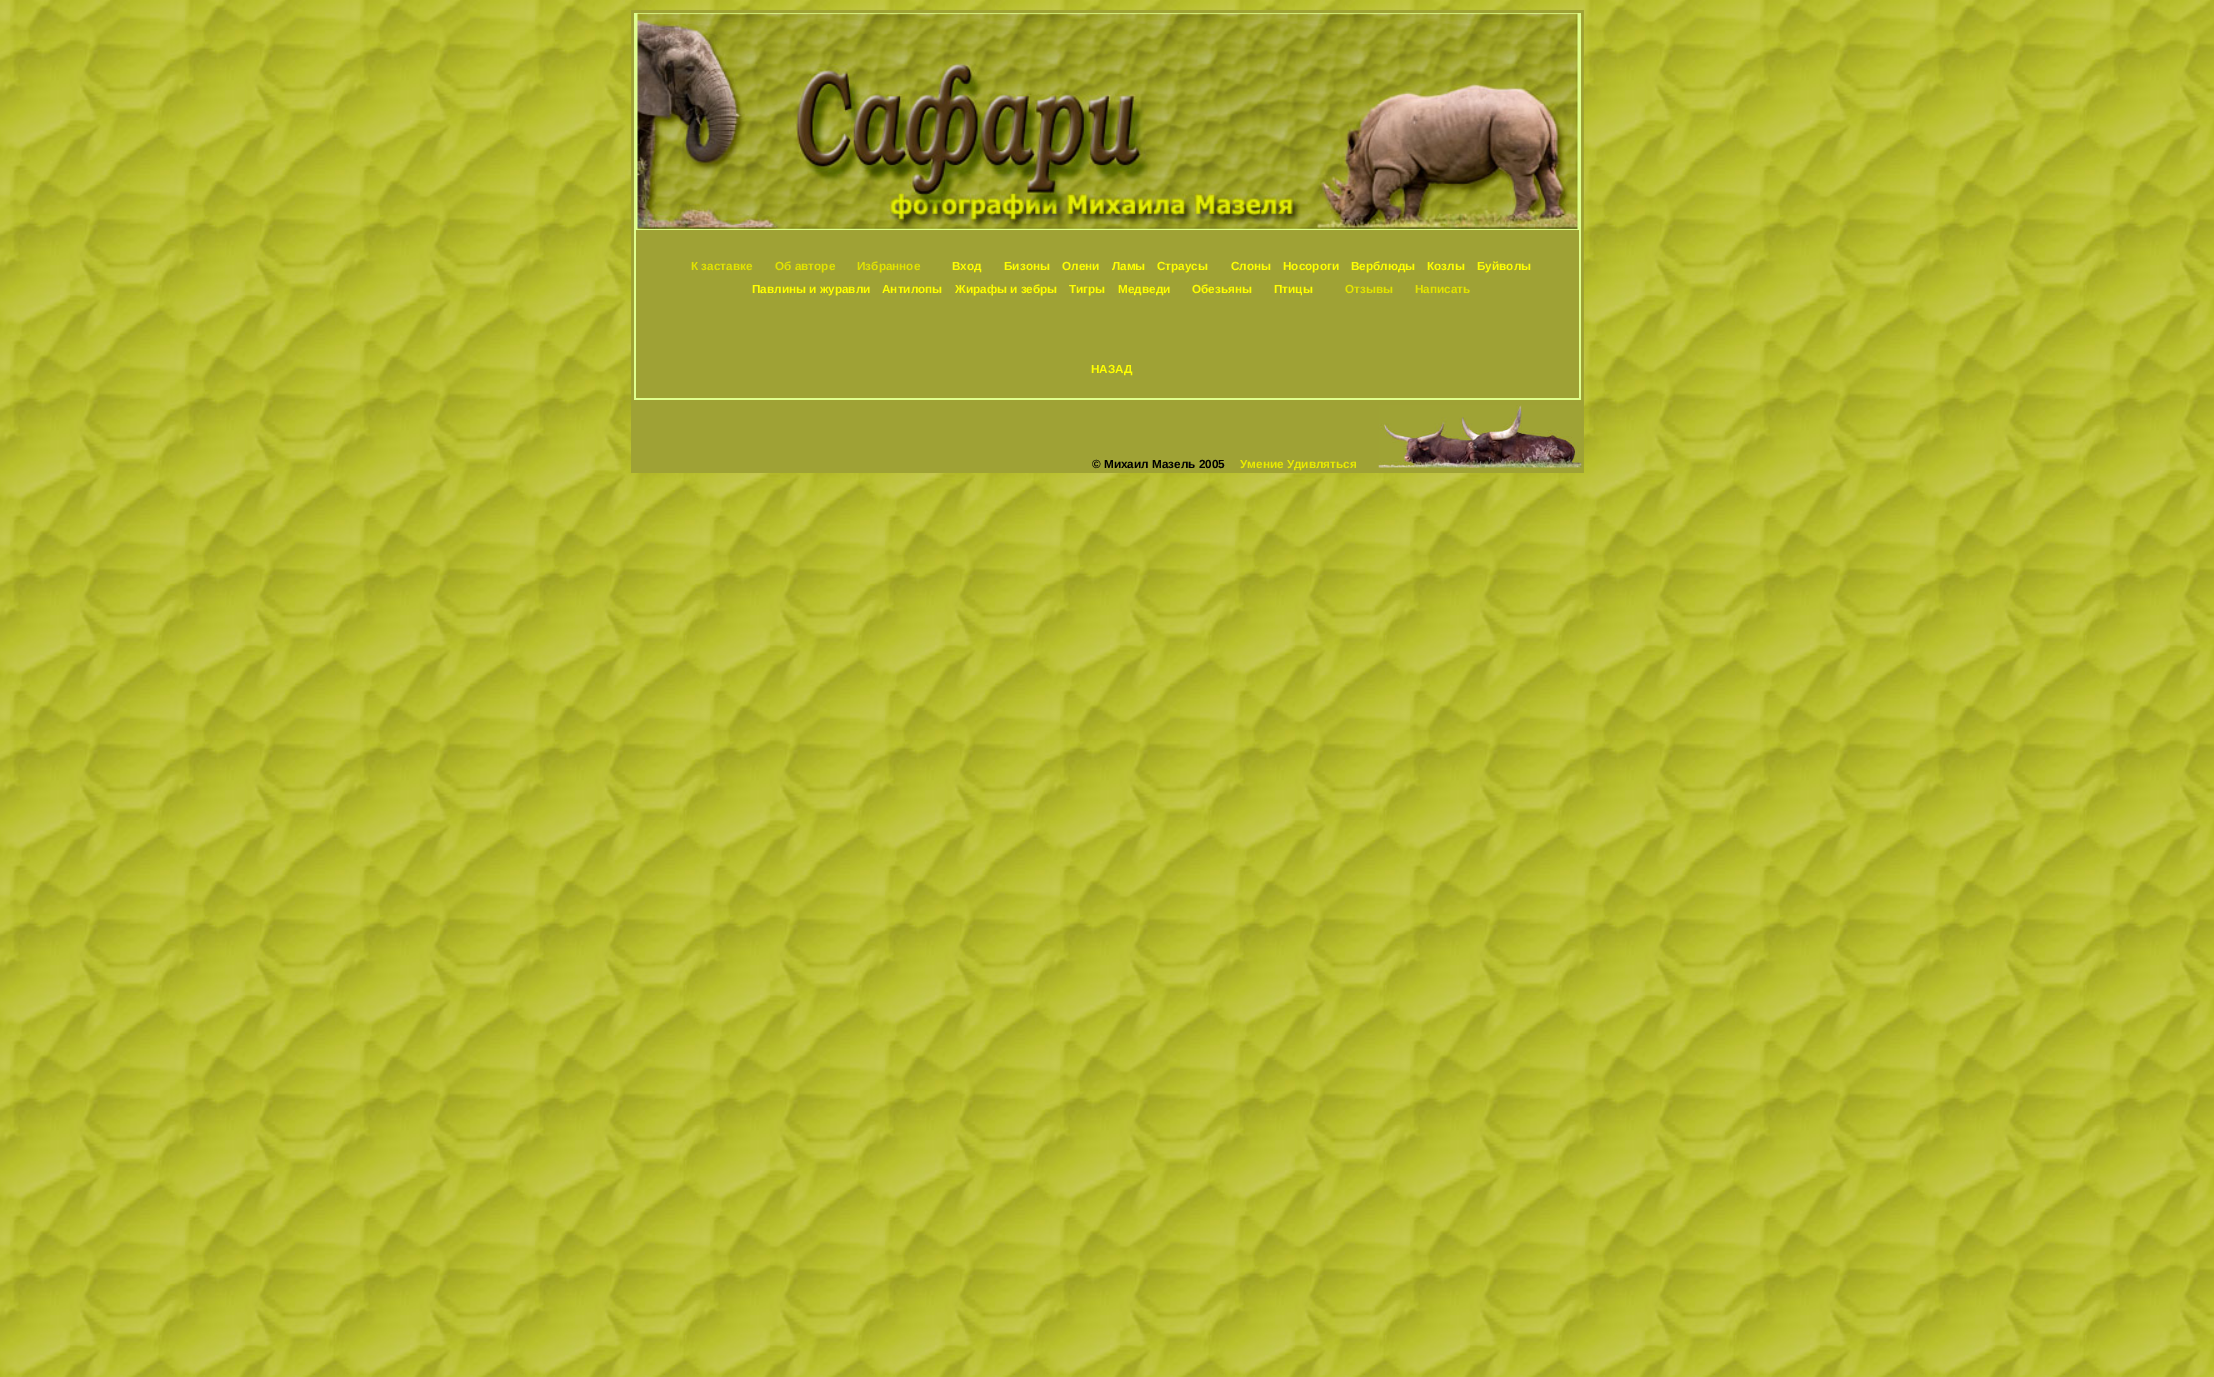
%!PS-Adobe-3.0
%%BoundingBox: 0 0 2214 1377
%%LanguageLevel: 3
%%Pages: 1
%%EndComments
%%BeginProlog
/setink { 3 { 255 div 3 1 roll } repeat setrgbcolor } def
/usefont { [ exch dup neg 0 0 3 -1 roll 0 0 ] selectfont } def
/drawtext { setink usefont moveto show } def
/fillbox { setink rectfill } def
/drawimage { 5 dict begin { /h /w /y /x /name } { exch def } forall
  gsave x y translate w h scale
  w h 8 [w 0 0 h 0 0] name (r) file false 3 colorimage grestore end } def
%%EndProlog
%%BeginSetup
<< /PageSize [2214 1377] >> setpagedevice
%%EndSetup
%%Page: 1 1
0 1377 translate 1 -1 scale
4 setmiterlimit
0 0 2214 1377 255 255 255 fillbox
(assets/img1.rgb) 0 0 2214 1377 drawimage
631 10 953 463 159 162 53 fillbox
634 13 947 387 223 255 143 fillbox
(assets/img2.rgb) 637 13 941 216 drawimage
636 230 943 168 159 162 53 fillbox
(К заставке) 691 270 /LiberationSans-Bold 11.75 226 227 0 drawtext
(Об авторе) 775 270 /LiberationSans-Bold 11.75 226 227 0 drawtext
(Избранное) 857 270 /LiberationSans-Bold 11.75 226 227 0 drawtext
(Вход) 952 270 /LiberationSans-Bold 11.75 255 255 0 drawtext
(Бизоны) 1004 270 /LiberationSans-Bold 11.75 255 255 0 drawtext
(Олени) 1062 270 /LiberationSans-Bold 11.75 255 255 0 drawtext
(Ламы) 1112 270 /LiberationSans-Bold 11.75 255 255 0 drawtext
(Страусы) 1157 270 /LiberationSans-Bold 11.75 255 255 0 drawtext
(Слоны) 1231 270 /LiberationSans-Bold 11.75 255 255 0 drawtext
(Носороги) 1283 270 /LiberationSans-Bold 11.75 255 255 0 drawtext
(Верблюды) 1351 270 /LiberationSans-Bold 11.75 255 255 0 drawtext
(Козлы) 1427 270 /LiberationSans-Bold 11.75 255 255 0 drawtext
(Буйволы) 1477 270 /LiberationSans-Bold 11.75 255 255 0 drawtext
(Павлины и журавли) 752 293 /LiberationSans-Bold 11.75 255 255 0 drawtext
(Антилопы) 882 293 /LiberationSans-Bold 11.75 255 255 0 drawtext
(Жирафы и зебры) 955 293 /LiberationSans-Bold 11.75 255 255 0 drawtext
(Тигры) 1069 293 /LiberationSans-Bold 11.75 255 255 0 drawtext
(Медведи) 1118 293 /LiberationSans-Bold 11.75 255 255 0 drawtext
(Обезьяны) 1192 293 /LiberationSans-Bold 11.75 255 255 0 drawtext
(Птицы) 1274 293 /LiberationSans-Bold 11.75 255 255 0 drawtext
(Отзывы) 1345 293 /LiberationSans-Bold 11.75 226 227 0 drawtext
(Написать) 1415 293 /LiberationSans-Bold 11.75 226 227 0 drawtext
(НАЗАД) 1091 373 /LiberationSans-Bold 11.75 255 255 0 drawtext
(© Михаил Мазель 2005) 1092 468 /LiberationSans-Bold 11.75 0 0 0 drawtext
(Умение Удивляться) 1240 468 /LiberationSans-Bold 11.75 233 234 0 drawtext
(assets/img3.rgb) 1378 405 204 63 drawimage
showpage
%%EOF
